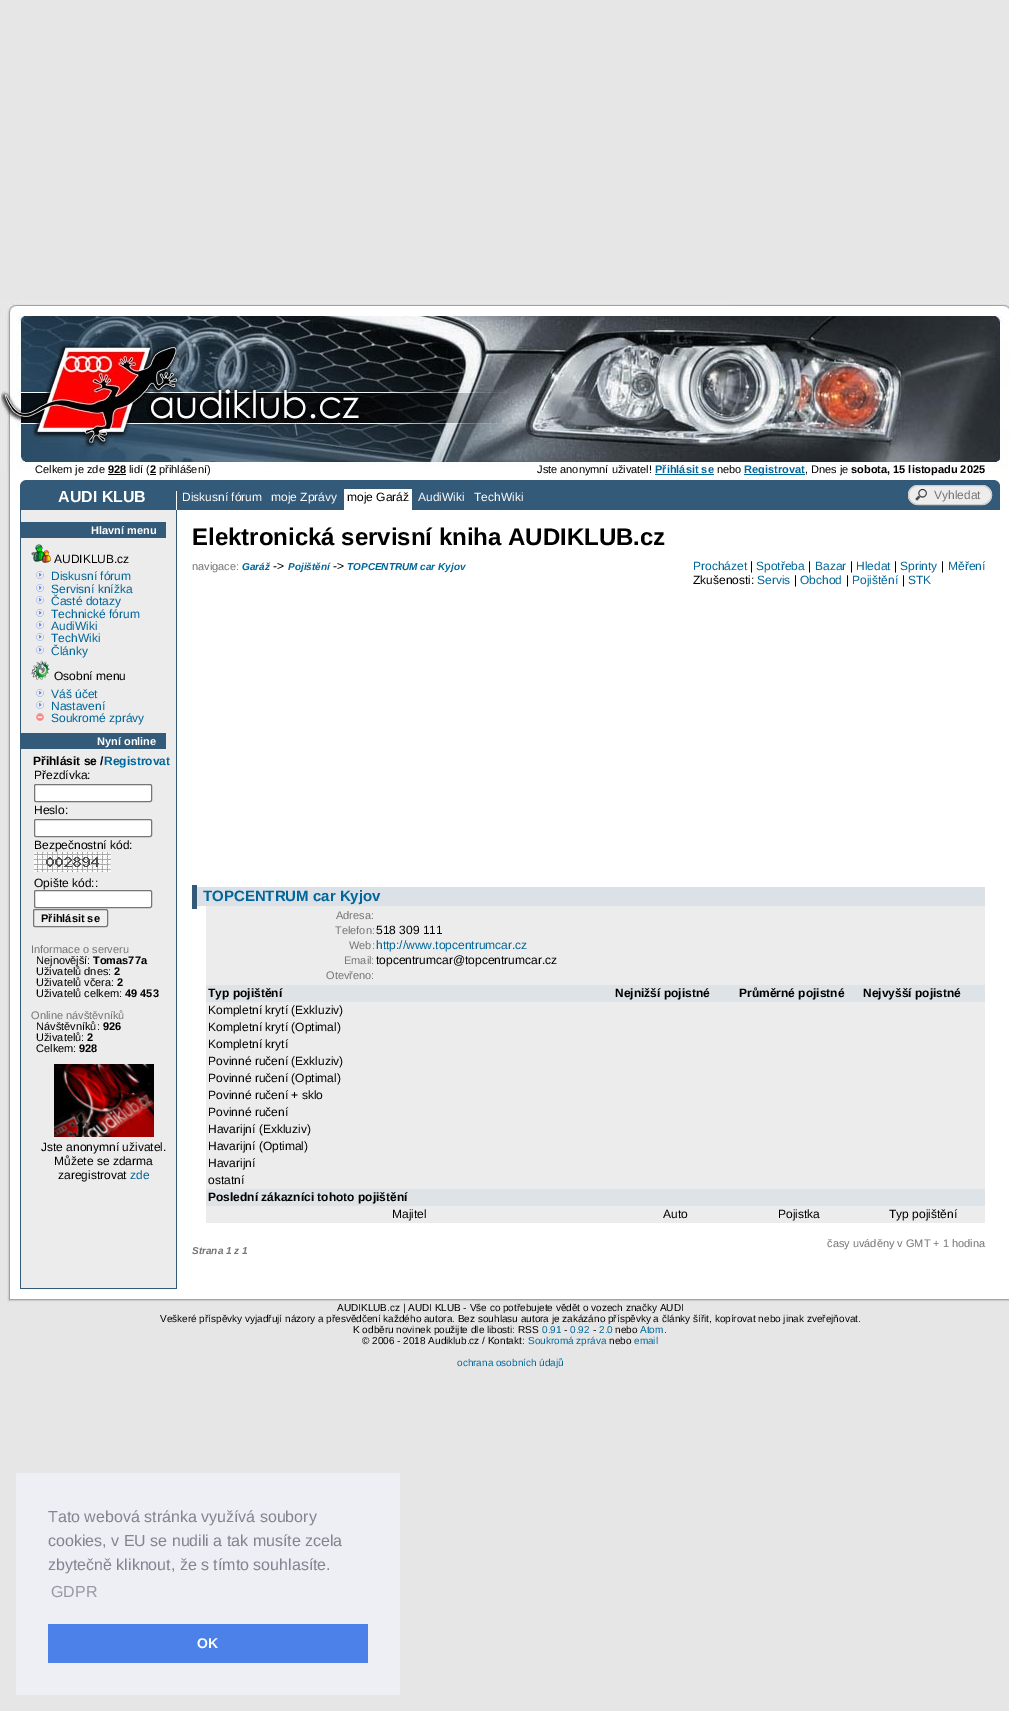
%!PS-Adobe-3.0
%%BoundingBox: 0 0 1009 1711
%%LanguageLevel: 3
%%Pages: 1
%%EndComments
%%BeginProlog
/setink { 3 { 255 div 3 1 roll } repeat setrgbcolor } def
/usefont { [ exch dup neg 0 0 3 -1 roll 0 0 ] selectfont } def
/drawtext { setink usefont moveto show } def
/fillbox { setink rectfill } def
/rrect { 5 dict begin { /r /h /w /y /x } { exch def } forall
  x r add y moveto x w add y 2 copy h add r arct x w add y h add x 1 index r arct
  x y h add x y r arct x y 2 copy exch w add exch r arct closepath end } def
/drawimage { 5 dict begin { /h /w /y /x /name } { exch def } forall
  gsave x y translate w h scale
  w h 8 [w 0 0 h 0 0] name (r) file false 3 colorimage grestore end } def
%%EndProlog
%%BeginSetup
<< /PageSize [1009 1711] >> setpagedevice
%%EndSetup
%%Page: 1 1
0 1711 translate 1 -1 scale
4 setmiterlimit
0 0 1009 1711 230 230 230 fillbox
(assets/img1.rgb) 1 300 1008 170 drawimage
10 470 999 829 255 255 255 fillbox
(Celkem je zde) 35 473 /LiberationSans-Regular 11 0 0 0 drawtext
(928) 108 473 /LiberationSans-Bold 11 0 0 0 drawtext
108 474 18 1 0 0 0 fillbox
(lidí \() 129 473 /LiberationSans-Regular 11 0 0 0 drawtext
150 474 6 1 0 0 0 fillbox
(2) 150 473 /LiberationSans-Bold 11 0 0 0 drawtext
(přihlášení\)) 159 473 /LiberationSans-Regular 11 0 0 0 drawtext
(Jste anonymní uživatel!) 537 473 /LiberationSans-Regular 11 0 0 0 drawtext
(Přihlásit se) 655 473 /LiberationSans-Bold 11 0 102 153 drawtext
655 474 59 1 0 102 153 fillbox
(nebo) 717 473 /LiberationSans-Regular 11 0 0 0 drawtext
744 474 61 1 0 102 153 fillbox
(Registrovat) 744 473 /LiberationSans-Bold 11 0 102 153 drawtext
(, Dnes je) 805 473 /LiberationSans-Regular 11 0 0 0 drawtext
(sobota, 15 listopadu 2025) 851 473 /LiberationSans-Bold 11 0 0 0 drawtext
7 1301 1002 1 223 223 223 fillbox
7 470 1 832 223 223 223 fillbox
8 1300 1001 1 206 206 206 fillbox
8 470 1 831 206 206 206 fillbox
9 1299 1000 1 162 162 162 fillbox
9 470 1 830 162 162 162 fillbox
20 480 980 30 51 90 121 fillbox
(assets/img2.rgb) 20 480 6 5 drawimage
176 491 1 19 255 255 255 fillbox
(AUDI KLUB) 58 502 /LiberationSans-Bold 16 255 255 255 drawtext
(Diskusní fórum) 182 501 /LiberationSans-Regular 12 255 255 255 drawtext
(moje Zprávy) 271 501 /LiberationSans-Regular 12 255 255 255 drawtext
344 489 68 21 255 255 255 fillbox
(moje Garáž) 347 501 /LiberationSans-Regular 12 0 0 0 drawtext
(AudiWiki) 418 501 /LiberationSans-Regular 12 255 255 255 drawtext
(TechWiki) 474 501 /LiberationSans-Regular 12 255 255 255 drawtext
(assets/img3.rgb) 994 480 6 5 drawimage
237 237 237 setink
908 485 84 20 10 rrect fill
(assets/img4.rgb) 915 489 12 12 drawimage
204 204 204 setink
908.5 485.5 83 19 9.5 rrect stroke
(Vyhledat) 934 499 /LiberationSans-Regular 12 117 117 117 drawtext
21 510 155 778 236 236 236 fillbox
176 510 1 779 51 90 121 fillbox
20 1288 157 1 51 90 121 fillbox
20 510 1 779 51 90 121 fillbox
21 522 145 16 51 90 121 fillbox
(Hlavní menu) 91 534 /LiberationSans-Bold 11 255 255 255 drawtext
(assets/img5.rgb) 31 544 20 19 drawimage
(AUDIKLUB.cz) 54 563 /LiberationSans-Regular 12 0 0 0 drawtext
(assets/img6.rgb) 36 571 8 8 drawimage
(Diskusní fórum) 51 580 /LiberationSans-Regular 12 0 102 153 drawtext
(assets/img6.rgb) 36 584 8 8 drawimage
(Servisní knížka) 51 593 /LiberationSans-Regular 12 0 102 153 drawtext
(assets/img6.rgb) 36 596 8 8 drawimage
(Časté dotazy) 51 605 /LiberationSans-Regular 12 0 102 153 drawtext
(assets/img6.rgb) 36 609 8 8 drawimage
(Technické fórum) 51 618 /LiberationSans-Regular 12 0 102 153 drawtext
(assets/img6.rgb) 36 621 8 8 drawimage
(AudiWiki) 51 630 /LiberationSans-Regular 12 0 102 153 drawtext
(assets/img6.rgb) 36 633 8 8 drawimage
(TechWiki) 51 642 /LiberationSans-Regular 12 0 102 153 drawtext
(assets/img6.rgb) 36 646 8 8 drawimage
(Články) 51 655 /LiberationSans-Regular 12 0 102 153 drawtext
(assets/img7.rgb) 31 660 19 20 drawimage
(Osobní menu) 54 680 /LiberationSans-Regular 12 0 0 0 drawtext
(assets/img6.rgb) 36 689 8 8 drawimage
(Váš účet) 51 698 /LiberationSans-Regular 12 0 102 153 drawtext
(assets/img6.rgb) 36 701 8 8 drawimage
(Nastavení) 51 710 /LiberationSans-Regular 12 0 102 153 drawtext
(assets/img8.rgb) 36 713 8 8 drawimage
(Soukromé zprávy) 51 722 /LiberationSans-Regular 12 0 102 153 drawtext
21 733 145 16 51 90 121 fillbox
(Nyní online) 97 745 /LiberationSans-Bold 11 255 255 255 drawtext
(Přihlásit se /) 33 765 /LiberationSans-Bold 12 0 0 0 drawtext
(Registrovat) 104 765 /LiberationSans-Bold 12 0 102 153 drawtext
(Přezdívka:) 34 779 /LiberationSans-Regular 12 0 0 0 drawtext
255 255 255 setink
34.5 784.5 117 17 1.5 rrect gsave fill grestore
118 118 118 setink
stroke
(Heslo:) 34 814 /LiberationSans-Regular 12 0 0 0 drawtext
255 255 255 setink
34.5 819.5 117 17 1.5 rrect gsave fill grestore
118 118 118 setink
stroke
(Bezpečnostní kód:) 34 849 /LiberationSans-Regular 12 0 0 0 drawtext
(assets/img9.rgb) 34 852 77 20 drawimage
(Opište kód::) 34 887 /LiberationSans-Regular 12 0 0 0 drawtext
255 255 255 setink
34.5 890.5 117 17 1.5 rrect gsave fill grestore
118 118 118 setink
stroke
239 239 239 setink
33.5 909.5 74 17 1.5 rrect gsave fill grestore
118 118 118 setink
stroke
(Přihlásit se) 41 922 /LiberationSans-Bold 11 0 0 0 drawtext
(Informace o serveru) 31 953 /LiberationSans-Regular 11 117 117 117 drawtext
(Nejnovější:) 36 964 /LiberationSans-Regular 11 0 0 0 drawtext
(Tomas77a) 93 964 /LiberationSans-Bold 11 0 0 0 drawtext
(Uživatelů dnes:) 36 975 /LiberationSans-Regular 11 0 0 0 drawtext
(2) 114 975 /LiberationSans-Bold 11 0 0 0 drawtext
(Uživatelů včera:) 36 986 /LiberationSans-Regular 11 0 0 0 drawtext
(2) 117 986 /LiberationSans-Bold 11 0 0 0 drawtext
(Uživatelů celkem:) 36 997 /LiberationSans-Regular 11 0 0 0 drawtext
(49 453) 125 997 /LiberationSans-Bold 11 0 0 0 drawtext
(Online návštěvníků) 31 1019 /LiberationSans-Regular 11 117 117 117 drawtext
(Návštěvníků:) 36 1030 /LiberationSans-Regular 11 0 0 0 drawtext
(926) 103 1030 /LiberationSans-Bold 11 0 0 0 drawtext
(Uživatelů:) 36 1041 /LiberationSans-Regular 11 0 0 0 drawtext
(2) 87 1041 /LiberationSans-Bold 11 0 0 0 drawtext
(Celkem:) 36 1052 /LiberationSans-Regular 11 0 0 0 drawtext
(928) 79 1052 /LiberationSans-Bold 11 0 0 0 drawtext
(assets/img10.rgb) 54 1064 100 73 drawimage
(Jste anonymní uživatel.) 41 1151 /LiberationSans-Regular 12 0 0 0 drawtext
(Můžete se zdarma) 54 1165 /LiberationSans-Regular 12 0 0 0 drawtext
(zaregistrovat) 58 1179 /LiberationSans-Regular 12 0 0 0 drawtext
(zde) 130 1179 /LiberationSans-Regular 12 0 102 153 drawtext
(Elektronická servisní kniha AUDIKLUB.cz) 192 545 /LiberationSans-Bold 24 0 0 0 drawtext
(navigace:) 192 570 /LiberationSans-Regular 11 117 117 117 drawtext
(Garáž) 242 570 /LiberationSans-BoldItalic 10 0 102 153 drawtext
(->) 273 570 /LiberationSans-Regular 12 0 0 0 drawtext
(Pojištění) 288 570 /LiberationSans-BoldItalic 10 0 102 153 drawtext
(->) 333 570 /LiberationSans-Regular 12 0 0 0 drawtext
(TOPCENTRUM car Kyjov) 347 570 /LiberationSans-BoldItalic 10 0 102 153 drawtext
(Procházet) 693 570 /LiberationSans-Regular 12 0 102 153 drawtext
(|) 750 570 /LiberationSans-Regular 12 0 0 0 drawtext
(Spotřeba) 756 570 /LiberationSans-Regular 12 0 102 153 drawtext
(|) 808 570 /LiberationSans-Regular 12 0 0 0 drawtext
(Bazar) 815 570 /LiberationSans-Regular 12 0 102 153 drawtext
(|) 850 570 /LiberationSans-Regular 12 0 0 0 drawtext
(Hledat) 856 570 /LiberationSans-Regular 12 0 102 153 drawtext
(|) 894 570 /LiberationSans-Regular 12 0 0 0 drawtext
(Sprinty) 900 570 /LiberationSans-Regular 12 0 102 153 drawtext
(|) 941 570 /LiberationSans-Regular 12 0 0 0 drawtext
(Měření) 948 570 /LiberationSans-Regular 12 0 102 153 drawtext
(Zkušenosti:) 693 584 /LiberationSans-Regular 12 0 0 0 drawtext
(Servis) 757 584 /LiberationSans-Regular 12 0 102 153 drawtext
(|) 794 584 /LiberationSans-Regular 12 0 0 0 drawtext
(Obchod) 800 584 /LiberationSans-Regular 12 0 102 153 drawtext
(|) 846 584 /LiberationSans-Regular 12 0 0 0 drawtext
(Pojištění) 852 584 /LiberationSans-Regular 12 0 102 153 drawtext
(|) 902 584 /LiberationSans-Regular 12 0 0 0 drawtext
(STK) 908 584 /LiberationSans-Regular 12 0 102 153 drawtext
197 887 788 19 219 225 231 fillbox
192 885 5 24 51 90 121 fillbox
(TOPCENTRUM car Kyjov) 203 901 /LiberationSans-Bold 15 0 102 153 drawtext
206 906 779 79 236 236 236 fillbox
(Adresa:) 336 919 /LiberationSans-Regular 11 117 117 117 drawtext
(Telefon:) 335 934 /LiberationSans-Regular 11 117 117 117 drawtext
(518 309 111) 376 934 /LiberationSans-Regular 12 0 0 0 drawtext
(Web:) 349 949 /LiberationSans-Regular 11 117 117 117 drawtext
(http://www.topcentrumcar.cz) 376 949 /LiberationSans-Regular 12 0 102 153 drawtext
(Email:) 344 964 /LiberationSans-Regular 11 117 117 117 drawtext
(topcentrumcar@topcentrumcar.cz) 376 964 /LiberationSans-Regular 12 0 0 0 drawtext
(Otevřeno:) 326 979 /LiberationSans-Regular 11 117 117 117 drawtext
206 985 779 17 222 227 231 fillbox
(Typ pojištění) 208 997 /LiberationSans-Bold 12 0 0 0 drawtext
(Nejnižší pojistné) 615 997 /LiberationSans-Bold 12 0 0 0 drawtext
(Průměrné pojistné) 739 997 /LiberationSans-Bold 12 0 0 0 drawtext
(Nejvyšší pojistné) 863 997 /LiberationSans-Bold 12 0 0 0 drawtext
206 1002 779 17 236 236 236 fillbox
(Kompletní krytí \(Exkluziv\)) 208 1014 /LiberationSans-Regular 12 0 0 0 drawtext
206 1019 779 17 236 236 236 fillbox
(Kompletní krytí \(Optimal\)) 208 1031 /LiberationSans-Regular 12 0 0 0 drawtext
206 1036 779 17 236 236 236 fillbox
(Kompletní krytí) 208 1048 /LiberationSans-Regular 12 0 0 0 drawtext
206 1053 779 17 236 236 236 fillbox
(Povinné ručení \(Exkluziv\)) 208 1065 /LiberationSans-Regular 12 0 0 0 drawtext
206 1070 779 17 236 236 236 fillbox
(Povinné ručení \(Optimal\)) 208 1082 /LiberationSans-Regular 12 0 0 0 drawtext
206 1087 779 17 236 236 236 fillbox
(Povinné ručení + sklo) 208 1099 /LiberationSans-Regular 12 0 0 0 drawtext
206 1104 779 17 236 236 236 fillbox
(Povinné ručení) 208 1116 /LiberationSans-Regular 12 0 0 0 drawtext
206 1121 779 17 236 236 236 fillbox
(Havarijní \(Exkluziv\)) 208 1133 /LiberationSans-Regular 12 0 0 0 drawtext
206 1138 779 17 236 236 236 fillbox
(Havarijní \(Optimal\)) 208 1150 /LiberationSans-Regular 12 0 0 0 drawtext
206 1155 779 17 236 236 236 fillbox
(Havarijní) 208 1167 /LiberationSans-Regular 12 0 0 0 drawtext
206 1172 779 17 236 236 236 fillbox
(ostatní) 208 1184 /LiberationSans-Regular 12 0 0 0 drawtext
206 1189 779 17 222 227 231 fillbox
(Poslední zákazníci tohoto pojištění) 208 1201 /LiberationSans-Bold 12 0 0 0 drawtext
206 1206 779 17 236 236 236 fillbox
(Majitel) 392 1218 /LiberationSans-Regular 12 0 0 0 drawtext
(Auto) 663 1218 /LiberationSans-Regular 12 0 0 0 drawtext
(Pojistka) 778 1218 /LiberationSans-Regular 12 0 0 0 drawtext
(Typ pojištění) 889 1218 /LiberationSans-Regular 12 0 0 0 drawtext
(časy uváděny v GMT + 1 hodina) 827 1247 /LiberationSans-Regular 11 117 117 117 drawtext
(Strana 1 z 1) 192 1254 /LiberationSans-BoldItalic 10 117 117 117 drawtext
(AUDIKLUB.cz | AUDI KLUB - Vše co potřebujete vědět o vozech značky AUDI) 337 1311 /LiberationSans-Regular 10 0 0 0 drawtext
(Veškeré příspěvky vyjadřují názory a přesvědčení každého autora. Bez souhlasu autora je zakázáno příspěvky a články šířit, kopírovat nebo jinak zveřejňovat.) 160 1322 /LiberationSans-Regular 10 0 0 0 drawtext
(K odběru novinek použijte dle libosti: RSS) 353 1333 /LiberationSans-Regular 10 0 0 0 drawtext
(0.91) 542 1333 /LiberationSans-Regular 10 0 102 153 drawtext
(-) 564 1333 /LiberationSans-Regular 10 0 0 0 drawtext
(0.92) 570 1333 /LiberationSans-Regular 10 0 102 153 drawtext
(-) 593 1333 /LiberationSans-Regular 10 0 0 0 drawtext
(2.0) 599 1333 /LiberationSans-Regular 10 0 102 153 drawtext
(nebo) 615 1333 /LiberationSans-Regular 10 0 0 0 drawtext
(Atom) 640 1333 /LiberationSans-Regular 10 0 102 153 drawtext
(.) 664 1333 /LiberationSans-Regular 10 0 0 0 drawtext
(© 2006 - 2018 Audiklub.cz / Kontakt:) 362 1344 /LiberationSans-Regular 10 0 0 0 drawtext
(Soukromá zpráva) 528 1344 /LiberationSans-Regular 10 0 102 153 drawtext
(nebo) 609 1344 /LiberationSans-Regular 10 0 0 0 drawtext
(email) 634 1344 /LiberationSans-Regular 10 0 102 153 drawtext
(ochrana osobních údajů) 457 1366 /LiberationSans-Regular 10 0 102 153 drawtext
16 1473 384 222 237 239 245 fillbox
(Tato webová stránka využívá soubory) 48 1522 /LiberationSans-Regular 16 131 131 145 drawtext
(cookies, v EU se nudili a tak musíte zcela) 48 1546 /LiberationSans-Regular 16 131 131 145 drawtext
(zbytečně kliknout, že s tímto souhlasíte.) 48 1570 /LiberationSans-Regular 16 131 131 145 drawtext
(GDPR) 51 1597 /LiberationSans-Regular 16 152 153 165 drawtext
48 1624 320 39 75 129 232 fillbox
(OK) 197 1648 /LiberationSans-Bold 14 255 255 255 drawtext
showpage
%%EOF
